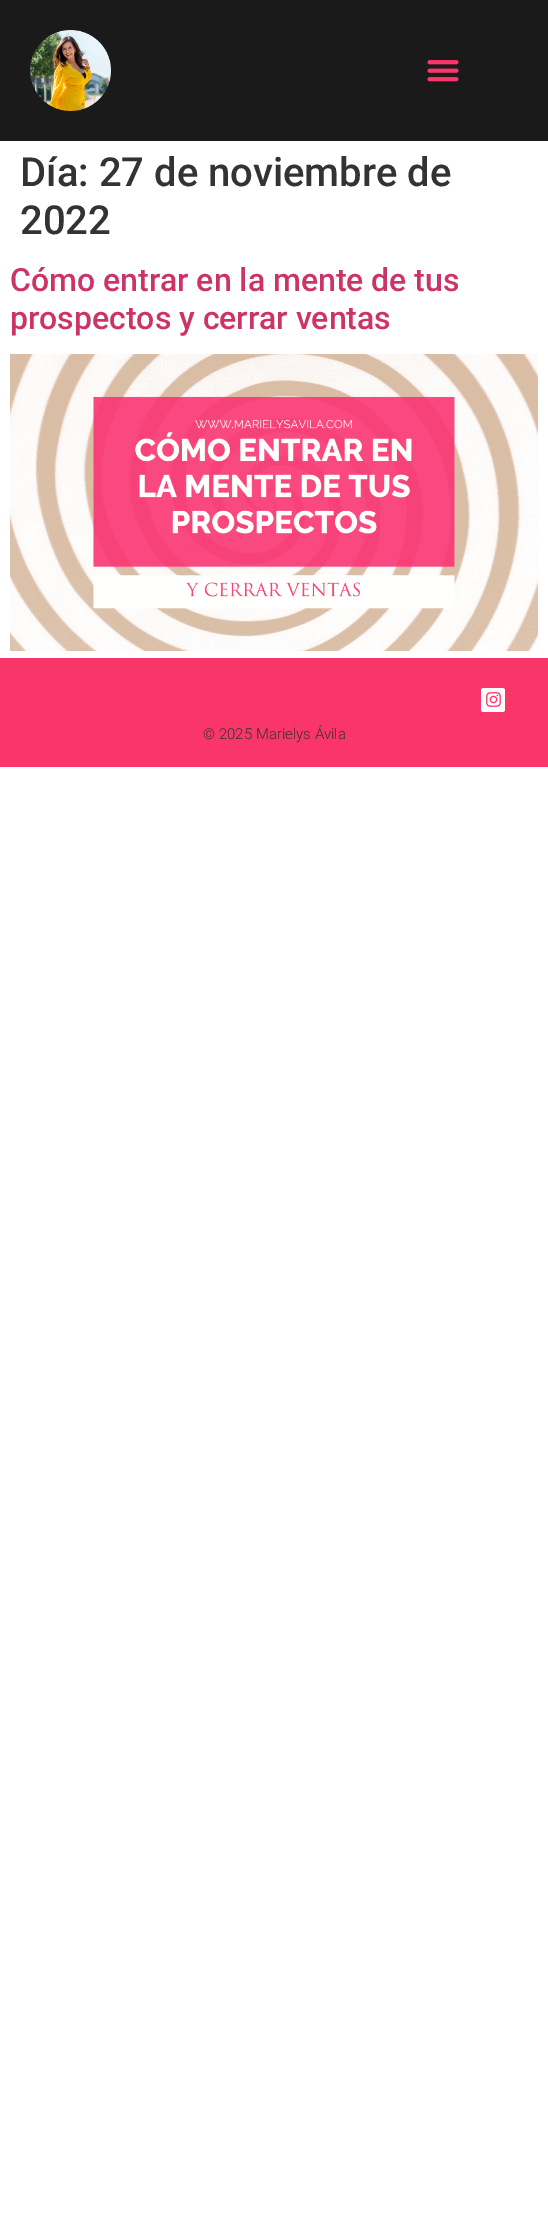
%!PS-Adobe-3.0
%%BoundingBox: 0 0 548 2229
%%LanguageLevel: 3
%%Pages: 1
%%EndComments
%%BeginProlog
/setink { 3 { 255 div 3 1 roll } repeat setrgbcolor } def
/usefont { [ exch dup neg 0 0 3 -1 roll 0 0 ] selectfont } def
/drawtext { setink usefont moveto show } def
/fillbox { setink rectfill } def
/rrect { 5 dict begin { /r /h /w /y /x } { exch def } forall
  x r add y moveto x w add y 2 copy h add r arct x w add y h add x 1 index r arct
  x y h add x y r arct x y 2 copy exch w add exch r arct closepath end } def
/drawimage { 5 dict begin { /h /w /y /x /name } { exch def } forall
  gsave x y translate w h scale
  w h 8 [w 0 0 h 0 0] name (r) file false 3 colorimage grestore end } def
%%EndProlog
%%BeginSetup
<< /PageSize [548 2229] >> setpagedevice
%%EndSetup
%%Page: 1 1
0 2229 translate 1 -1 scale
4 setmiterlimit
0 0 548 2229 255 255 255 fillbox
0 0 548 141 26 26 26 fillbox
(assets/img1.rgb) 30 30 81 81 drawimage
(assets/img2.rgb) 427 60 32 22 drawimage
(Día: 27 de noviembre de) 20 186 /Roboto-Medium 40 51 51 51 drawtext
(2022) 20 234 /Roboto-Medium 40 51 51 51 drawtext
(Cómo entrar en la mente de tus) 10 291 /Roboto-Medium 32 204 51 102 drawtext
(prospectos y cerrar ventas) 10 329 /Roboto-Medium 32 204 51 102 drawtext
(assets/img3.rgb) 10 354 528 297 drawimage
0 658 548 109 250 53 106 fillbox
255 255 255 setink
481 688 24 24 2.5 rrect fill
(assets/img4.rgb) 486 692 15 15 drawimage
(© 2025 Marielys Ávila) 203 739 /Roboto-Light 15 51 51 51 drawtext
showpage
%%EOF
